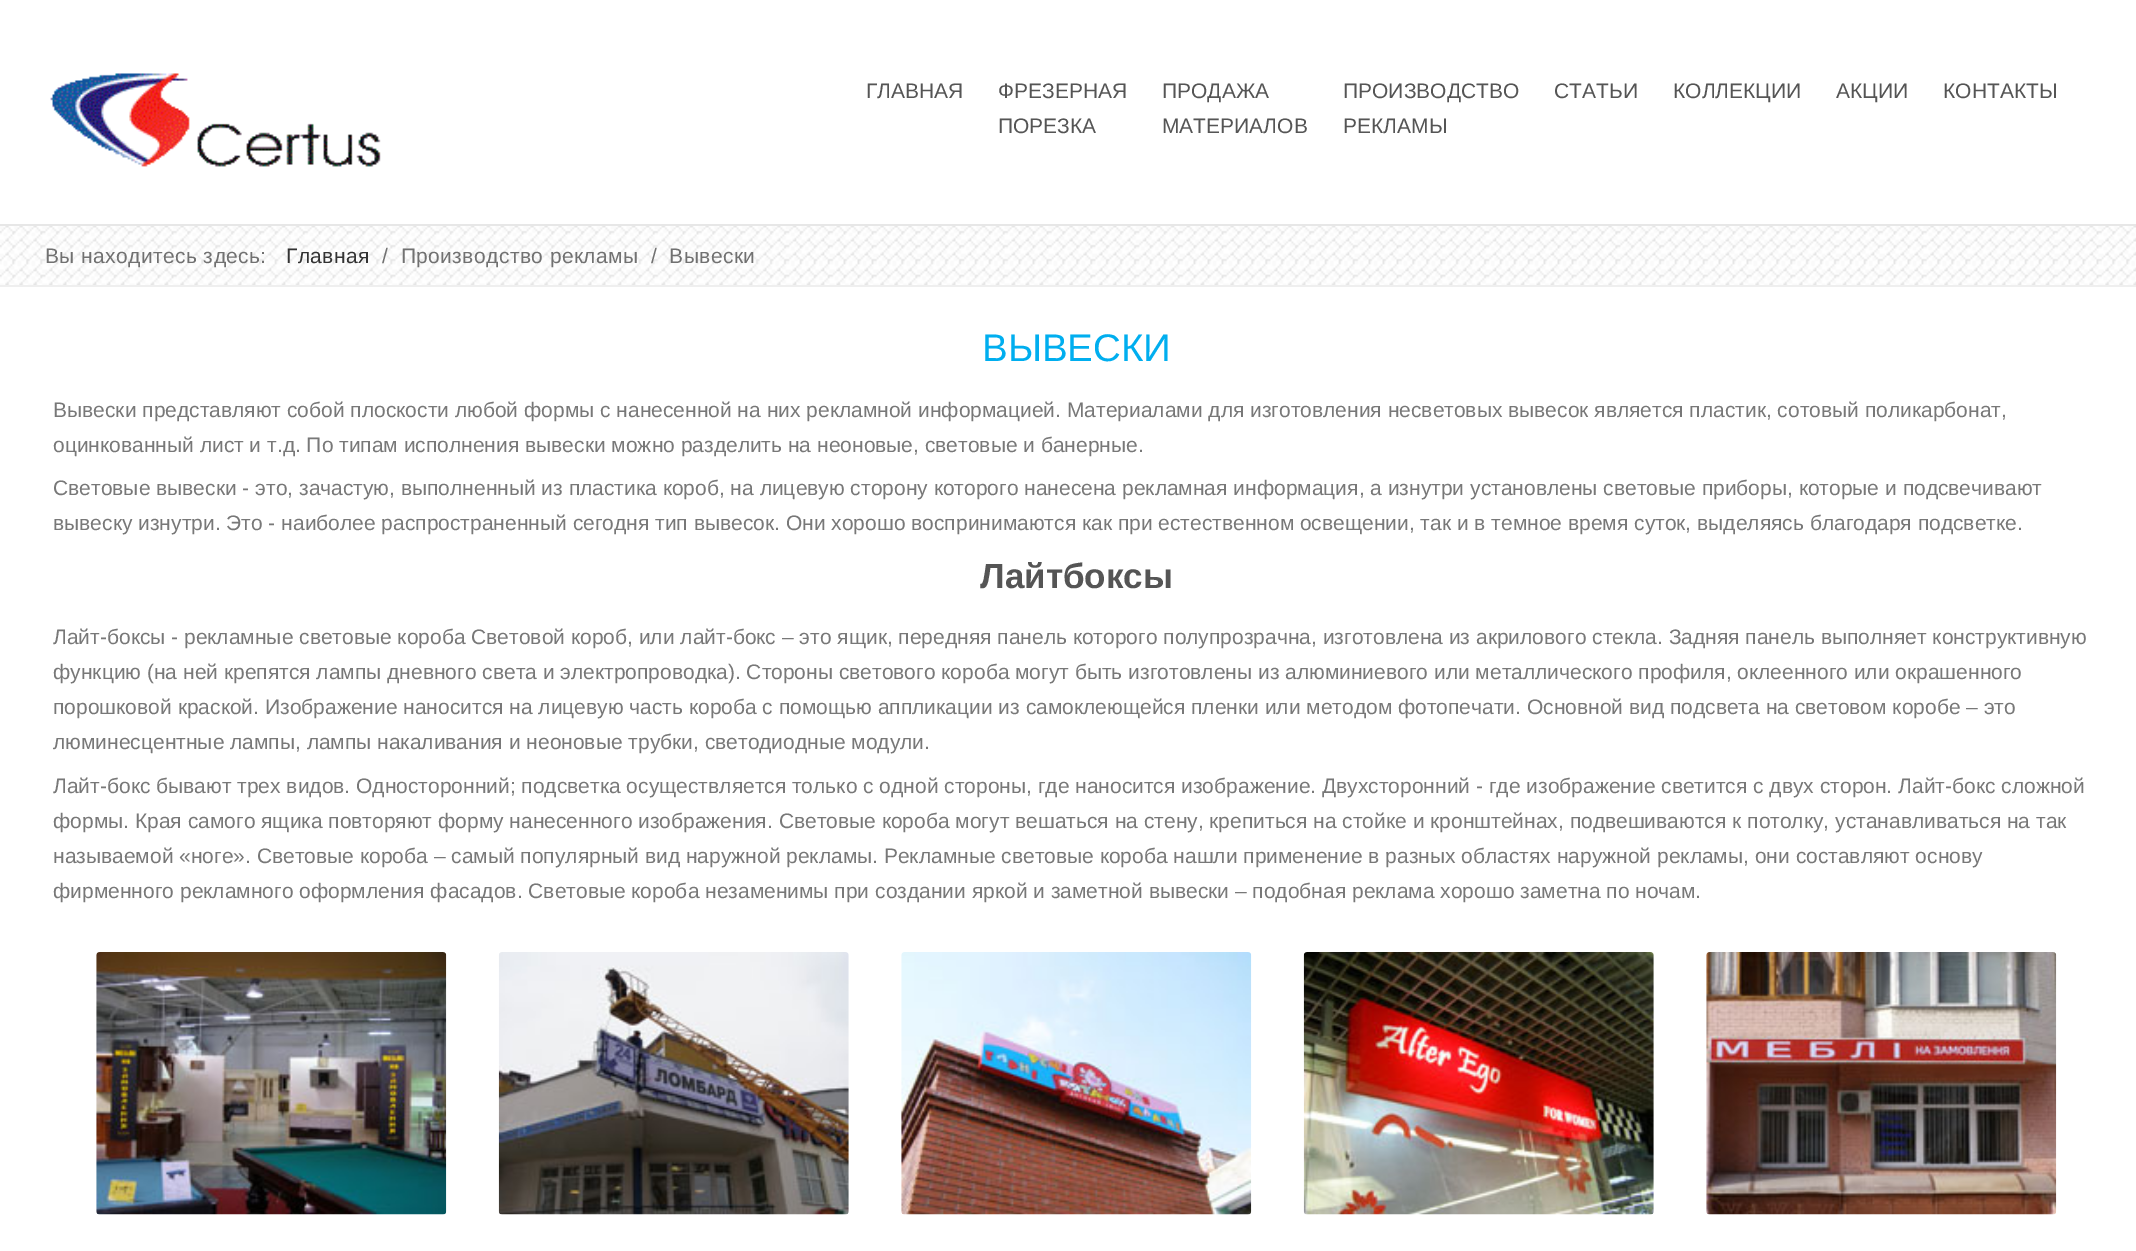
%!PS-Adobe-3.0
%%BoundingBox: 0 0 2136 1251
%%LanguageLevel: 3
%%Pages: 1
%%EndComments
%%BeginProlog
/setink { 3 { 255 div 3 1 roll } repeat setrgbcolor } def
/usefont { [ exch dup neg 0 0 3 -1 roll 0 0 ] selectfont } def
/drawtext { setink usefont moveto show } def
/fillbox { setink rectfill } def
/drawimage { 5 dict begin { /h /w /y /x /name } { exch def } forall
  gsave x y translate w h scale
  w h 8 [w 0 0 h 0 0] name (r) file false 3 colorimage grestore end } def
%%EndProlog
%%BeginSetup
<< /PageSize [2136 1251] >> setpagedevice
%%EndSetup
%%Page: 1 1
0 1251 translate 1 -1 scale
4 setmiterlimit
0 0 2136 1251 255 255 255 fillbox
(assets/img1.rgb) 0 226 2136 59 drawimage
0 224 2136 2 231 231 231 fillbox
(assets/img2.rgb) 50 73 331 94 drawimage
(ГЛАВНАЯ) 866 98 /LiberationSans-Regular 21 85 85 85 drawtext
(ФРЕЗЕРНАЯ) 998 98 /LiberationSans-Regular 21 85 85 85 drawtext
(ПОРЕЗКА) 998 133 /LiberationSans-Regular 21 85 85 85 drawtext
(ПРОДАЖА) 1162 98 /LiberationSans-Regular 21 85 85 85 drawtext
(МАТЕРИАЛОВ) 1162 133 /LiberationSans-Regular 21 85 85 85 drawtext
(ПРОИЗВОДСТВО) 1343 98 /LiberationSans-Regular 21 85 85 85 drawtext
(РЕКЛАМЫ) 1343 133 /LiberationSans-Regular 21 85 85 85 drawtext
(СТАТЬИ) 1554 98 /LiberationSans-Regular 21 85 85 85 drawtext
(КОЛЛЕКЦИИ) 1673 98 /LiberationSans-Regular 21 85 85 85 drawtext
(АКЦИИ) 1836 98 /LiberationSans-Regular 21 85 85 85 drawtext
(КОНТАКТЫ) 1943 98 /LiberationSans-Regular 21 85 85 85 drawtext
113 113 113 setink
45 263 moveto 0.4 0 (Вы находитесь здесь:) ashow
51 51 51 setink
286 263 moveto 0.4 0 (Главная) ashow
113 113 113 setink
382 263 moveto 0.4 0 (/  Производство рекламы  /  Вывески) ashow
0 285 2136 2 239 239 239 fillbox
(ВЫВЕСКИ) 982 361 /LiberationSans-Regular 38.5 0 174 239 drawtext
(Вывески представляют собой плоскости любой формы с нанесенной на них рекламной информацией. Материалами для изготовления несветовых вывесок является пластик, сотовый поликарбонат,) 53 417 /LiberationSans-Regular 21 120 120 120 drawtext
(оцинкованный лист и т.д. По типам исполнения вывески можно разделить на неоновые, световые и банерные.) 53 452 /LiberationSans-Regular 21 120 120 120 drawtext
(Световые вывески - это, зачастую, выполненный из пластика короб, на лицевую сторону которого нанесена рекламная информация, а изнутри установлены световые приборы, которые и подсвечивают) 53 495 /LiberationSans-Regular 21 120 120 120 drawtext
(вывеску изнутри. Это - наиболее распространенный сегодня тип вывесок. Они хорошо воспринимаются как при естественном освещении, так и в темное время суток, выделяясь благодаря подсветке.) 53 530 /LiberationSans-Regular 21 120 120 120 drawtext
(Лайтбоксы) 980 588 /LiberationSans-Bold 35 85 85 85 drawtext
(Лайт-боксы - рекламные cветовые короба Световой короб, или лайт-бокс – это ящик, передняя панель которого полупрозрачна, изготовлена из акрилового стекла. Задняя панель выполняет конструктивную) 53 644 /LiberationSans-Regular 21 120 120 120 drawtext
(функцию \(на ней крепятся лампы дневного света и электропроводка\). Стороны светового короба могут быть изготовлены из алюминиевого или металлического профиля, оклеенного или окрашенного) 53 679 /LiberationSans-Regular 21 120 120 120 drawtext
(порошковой краской. Изображение наносится на лицевую часть короба с помощью аппликации из самоклеющейся пленки или методом фотопечати. Основной вид подсвета на световом коробе – это) 53 714 /LiberationSans-Regular 21 120 120 120 drawtext
(люминесцентные лампы, лампы накаливания и неоновые трубки, светодиодные модули.) 53 749 /LiberationSans-Regular 21 120 120 120 drawtext
(Лайт-бокс бывают трех видов. Односторонний; подсветка осуществляется только с одной стороны, где наносится изображение. Двухсторонний - где изображение светится с двух сторон. Лайт-бокс сложной) 53 793 /LiberationSans-Regular 21 120 120 120 drawtext
(формы. Края самого ящика повторяют форму нанесенного изображения. Световые короба могут вешаться на стену, крепиться на стойке и кронштейнах, подвешиваются к потолку, устанавливаться на так) 53 828 /LiberationSans-Regular 21 120 120 120 drawtext
(называемой «ноге». Световые короба – самый популярный вид наружной рекламы. Рекламные световые короба нашли применение в разных областях наружной рекламы, они составляют основу) 53 863 /LiberationSans-Regular 21 120 120 120 drawtext
(фирменного рекламного оформления фасадов. Световые короба незаменимы при создании яркой и заметной вывески – подобная реклама хорошо заметна по ночам.) 53 898 /LiberationSans-Regular 21 120 120 120 drawtext
(assets/img3.rgb) 96 952 351 263 drawimage
(assets/img4.rgb) 498 952 351 263 drawimage
(assets/img5.rgb) 901 952 351 263 drawimage
(assets/img6.rgb) 1303 952 351 263 drawimage
(assets/img7.rgb) 1706 952 351 263 drawimage
showpage
%%EOF
